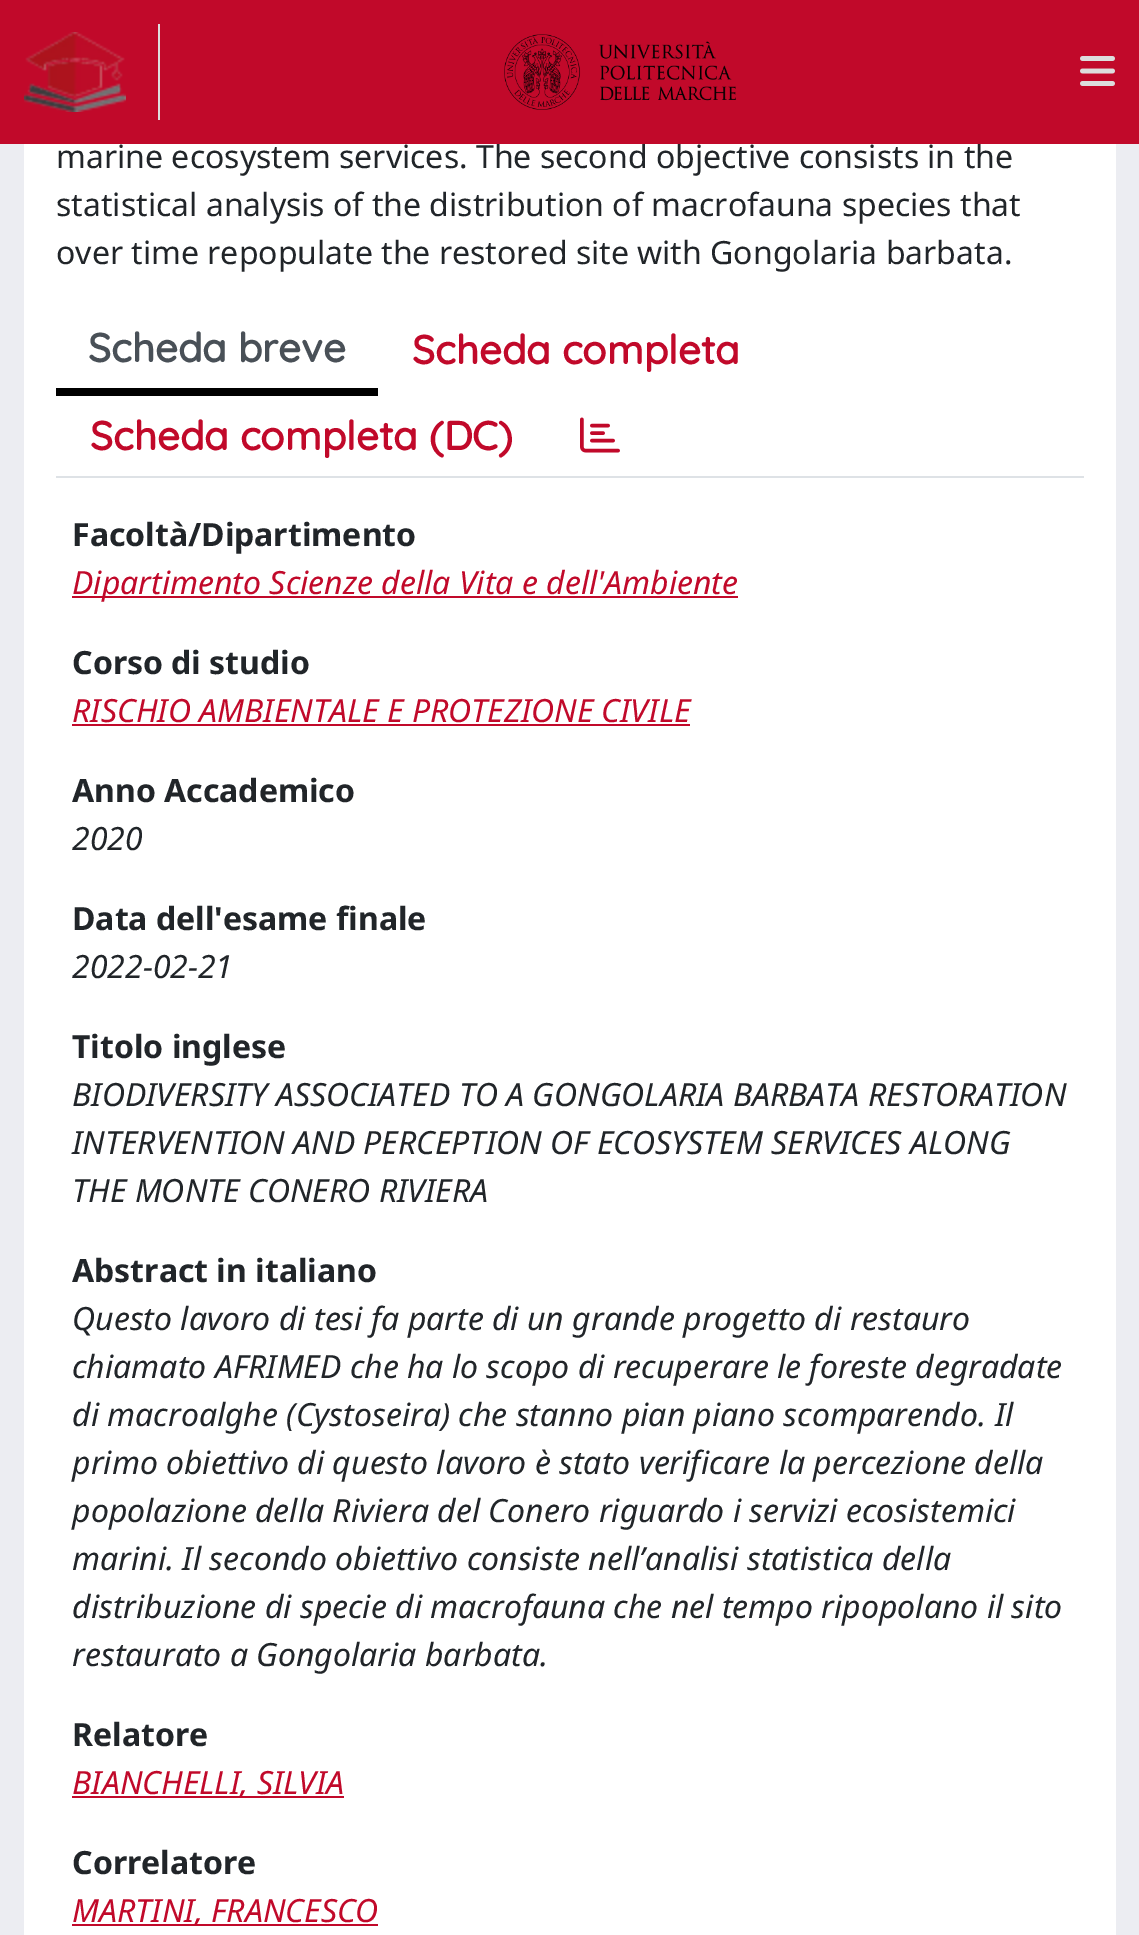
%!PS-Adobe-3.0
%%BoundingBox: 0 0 1139 1935
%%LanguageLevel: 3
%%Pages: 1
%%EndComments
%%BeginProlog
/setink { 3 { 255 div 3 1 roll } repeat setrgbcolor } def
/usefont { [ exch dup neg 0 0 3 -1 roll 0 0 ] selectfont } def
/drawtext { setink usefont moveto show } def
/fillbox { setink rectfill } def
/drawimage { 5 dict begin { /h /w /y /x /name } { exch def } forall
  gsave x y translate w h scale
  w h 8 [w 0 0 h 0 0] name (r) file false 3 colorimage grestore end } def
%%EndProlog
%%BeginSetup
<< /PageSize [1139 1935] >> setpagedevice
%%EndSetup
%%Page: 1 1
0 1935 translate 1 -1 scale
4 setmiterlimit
0 0 1139 1935 236 237 242 fillbox
24 144 1092 1791 255 255 255 fillbox
(marine ecosystem services. The second objective consists in the) 56 168 /NotoSans-Regular 32 33 37 41 drawtext
0 0 1139 144 193 9 42 fillbox
158 24 2 96 221 221 221 fillbox
(assets/img1.rgb) 24 32 102 80 drawimage
(assets/img2.rgb) 504 34 232 76 drawimage
(assets/img3.rgb) 1080 56 35 30 drawimage
(statistical analysis of the distribution of macrofauna species that) 56 216 /NotoSans-Regular 32 33 37 41 drawtext
(over time repopulate the restored site with Gongolaria barbata.) 56 264 /NotoSans-Regular 32 33 37 41 drawtext
56 476 1028 2 222 226 230 fillbox
56 388 322 8 0 0 0 fillbox
(Scheda breve) 88 362 /Quicksand-Bold 40 73 80 87 drawtext
(Scheda completa) 412 364 /Quicksand-Bold 40 193 9 42 drawtext
(Scheda completa \(DC\)) 90 450 /Quicksand-Bold 40 193 9 42 drawtext
(assets/img4.rgb) 580 417 40 36 drawimage
(Facoltà/Dipartimento) 72 546 /NotoSans-Bold 32 33 37 41 drawtext
72 596 666 2 193 9 42 fillbox
(Dipartimento Scienze della Vita e dell'Ambiente) 72 594 /NotoSans-Italic 32 193 9 42 drawtext
(Corso di studio) 72 674 /NotoSans-Bold 32 33 37 41 drawtext
(RISCHIO AMBIENTALE E PROTEZIONE CIVILE) 72 722 /NotoSans-Italic 32 193 9 42 drawtext
72 724 618 2 193 9 42 fillbox
(Anno Accademico) 72 802 /NotoSans-Bold 32 33 37 41 drawtext
(2020) 72 850 /NotoSans-Italic 32 33 37 41 drawtext
(Data dell'esame finale) 72 930 /NotoSans-Bold 32 33 37 41 drawtext
(2022-02-21) 72 978 /NotoSans-Italic 32 33 37 41 drawtext
(Titolo inglese) 72 1058 /NotoSans-Bold 32 33 37 41 drawtext
(BIODIVERSITY ASSOCIATED TO A GONGOLARIA BARBATA RESTORATION) 72 1106 /NotoSans-Italic 32 33 37 41 drawtext
(INTERVENTION AND PERCEPTION OF ECOSYSTEM SERVICES ALONG) 72 1154 /NotoSans-Italic 32 33 37 41 drawtext
(THE MONTE CONERO RIVIERA) 72 1202 /NotoSans-Italic 32 33 37 41 drawtext
(Abstract in italiano) 72 1282 /NotoSans-Bold 32 33 37 41 drawtext
(Questo lavoro di tesi fa parte di un grande progetto di restauro) 72 1330 /NotoSans-Italic 32 33 37 41 drawtext
(chiamato AFRIMED che ha lo scopo di recuperare le foreste degradate) 72 1378 /NotoSans-Italic 32 33 37 41 drawtext
(di macroalghe \(Cystoseira\) che stanno pian piano scomparendo. Il) 72 1426 /NotoSans-Italic 32 33 37 41 drawtext
(primo obiettivo di questo lavoro è stato verificare la percezione della) 72 1474 /NotoSans-Italic 32 33 37 41 drawtext
(popolazione della Riviera del Conero riguardo i servizi ecosistemici) 72 1522 /NotoSans-Italic 32 33 37 41 drawtext
(marini. Il secondo obiettivo consiste nell’analisi statistica della) 72 1570 /NotoSans-Italic 32 33 37 41 drawtext
(distribuzione di specie di macrofauna che nel tempo ripopolano il sito) 72 1618 /NotoSans-Italic 32 33 37 41 drawtext
(restaurato a Gongolaria barbata.) 72 1666 /NotoSans-Italic 32 33 37 41 drawtext
(Relatore) 72 1746 /NotoSans-Bold 32 33 37 41 drawtext
72 1796 272 2 193 9 42 fillbox
(BIANCHELLI, SILVIA) 72 1794 /NotoSans-Italic 32 193 9 42 drawtext
(Correlatore) 72 1874 /NotoSans-Bold 32 33 37 41 drawtext
72 1924 306 2 193 9 42 fillbox
(MARTINI, FRANCESCO) 72 1922 /NotoSans-Italic 32 193 9 42 drawtext
showpage
%%EOF
